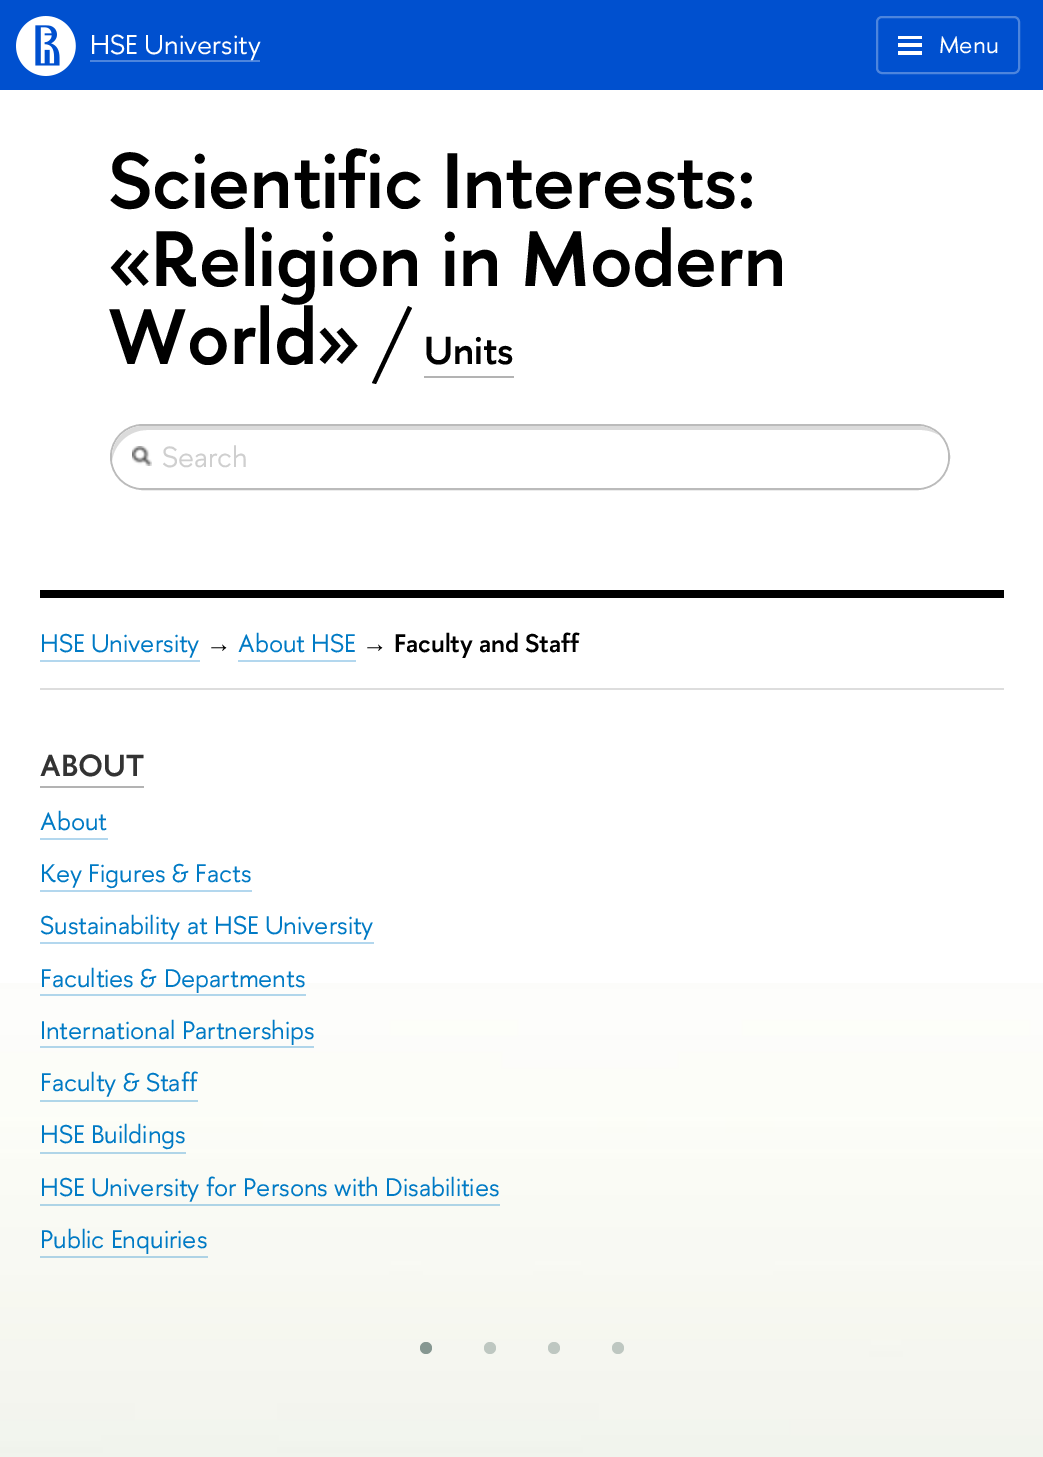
%!PS-Adobe-3.0
%%BoundingBox: 0 0 1043 1457
%%LanguageLevel: 3
%%Pages: 1
%%EndComments
%%BeginProlog
/setink { 3 { 255 div 3 1 roll } repeat setrgbcolor } def
/usefont { [ exch dup neg 0 0 3 -1 roll 0 0 ] selectfont } def
/drawtext { setink usefont moveto show } def
/fillbox { setink rectfill } def
/disc { newpath 0 360 arc closepath } def
/rrect { 5 dict begin { /r /h /w /y /x } { exch def } forall
  x r add y moveto x w add y 2 copy h add r arct x w add y h add x 1 index r arct
  x y h add x y r arct x y 2 copy exch w add exch r arct closepath end } def
/drawimage { 5 dict begin { /h /w /y /x /name } { exch def } forall
  gsave x y translate w h scale
  w h 8 [w 0 0 h 0 0] name (r) file false 3 colorimage grestore end } def
%%EndProlog
%%BeginSetup
<< /PageSize [1043 1457] >> setpagedevice
%%EndSetup
%%Page: 1 1
0 1457 translate 1 -1 scale
4 setmiterlimit
0 0 1043 1457 255 255 255 fillbox
(assets/img1.rgb) 0 983 1043 474 drawimage
0 0 1043 90 0 80 207 fillbox
(assets/img2.rgb) 16 16 60 60 drawimage
90 60 170 2 77 133 221 fillbox
(HSE University) 90 54 /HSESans-Regular 27.25 255 255 255 drawtext
77 133 221 setink
2 setlinewidth
877 17 142 56 5 rrect stroke
898 36 24 3 255 255 255 fillbox
898 43 24 4 255 255 255 fillbox
898 51 24 4 255 255 255 fillbox
(Menu) 939 53 /HSESans-Regular 24 255 255 255 drawtext
(Scientific Interests:) 108 208 /HSESans-SemiBold 78.25 0 0 0 drawtext
(«Religion in Modern) 108 286 /HSESans-SemiBold 78.25 0 0 0 drawtext
(World») 108 364 /HSESans-SemiBold 78.25 0 0 0 drawtext
408 306 moveto 412 308 lineto 376 384 lineto 372 383 lineto closepath fill
(Units) 424 364 /HSESans-SemiBold 39 0 0 0 drawtext
424 376 90 2 179 179 179 fillbox
187 187 187 setink
111 425 838 64 32 rrect stroke
255 255 255 setink
112 426 836 62 31 rrect fill
(assets/img3.rgb) 132 446 20 20 drawimage
219 219 219 setink
147 430 moveto 921 430 lineto 928 430 934 432 939 435 curveto 933 429 926 426 917 426 curveto 143 426 lineto 126 426 112 440 112 457 curveto 112 461 lineto 114 444 129 430 147 430 curveto closepath fill
(Search) 162 467 /HSESans-Regular 29 207 207 207 drawtext
40 590 964 8 0 0 0 fillbox
40 688 964 2 221 221 221 fillbox
(HSE University) 40 652 /HSESans-Regular 25.5 0 122 197 drawtext
40 660 160 2 179 215 238 fillbox
(→) 206 652 /LiberationSans-Regular 25.5 0 0 0 drawtext
(About HSE) 238 652 /HSESans-Regular 25.5 0 122 197 drawtext
238 660 118 2 179 215 238 fillbox
(→) 362 652 /LiberationSans-Regular 25.5 0 0 0 drawtext
(Faculty and Staff) 394 652 /HSESans-SemiBold 25.5 0 0 0 drawtext
(ABOUT) 40 776 /HSESans-SemiBold 30.5 51 51 51 drawtext
40 786 104 2 179 179 179 fillbox
(About) 40 830 /HSESans-Regular 25.5 0 122 197 drawtext
40 838 68 2 179 215 238 fillbox
(Key Figures & Facts) 40 882 /HSESans-Regular 25.5 0 122 197 drawtext
40 890 212 2 179 215 238 fillbox
(Sustainability at HSE University) 40 934 /HSESans-Regular 25.5 0 122 197 drawtext
40 942 334 2 179 215 238 fillbox
(Faculties & Departments) 40 987 /HSESans-Regular 25.5 0 122 197 drawtext
40 994 266 2 177 214 235 fillbox
(International Partnerships) 40 1039 /HSESans-Regular 25.5 0 122 197 drawtext
40 1046 274 2 176 213 234 fillbox
(Faculty & Staff) 40 1091 /HSESans-Regular 25.5 0 122 197 drawtext
40 1100 158 2 176 214 233 fillbox
(HSE Buildings) 40 1143 /HSESans-Regular 25.5 0 122 197 drawtext
40 1152 146 2 176 213 232 fillbox
(HSE University for Persons with Disabilities) 40 1196 /HSESans-Regular 25.5 0 122 197 drawtext
40 1204 460 2 174 212 230 fillbox
(Public Enquiries) 40 1248 /HSESans-Regular 25.5 0 122 197 drawtext
40 1256 168 2 174 211 229 fillbox
134 151 145 setink
426 1348 6 disc fill
190 199 193 setink
490 1348 6 disc fill
554 1348 6 disc fill
618 1348 6 disc fill
showpage
%%EOF
